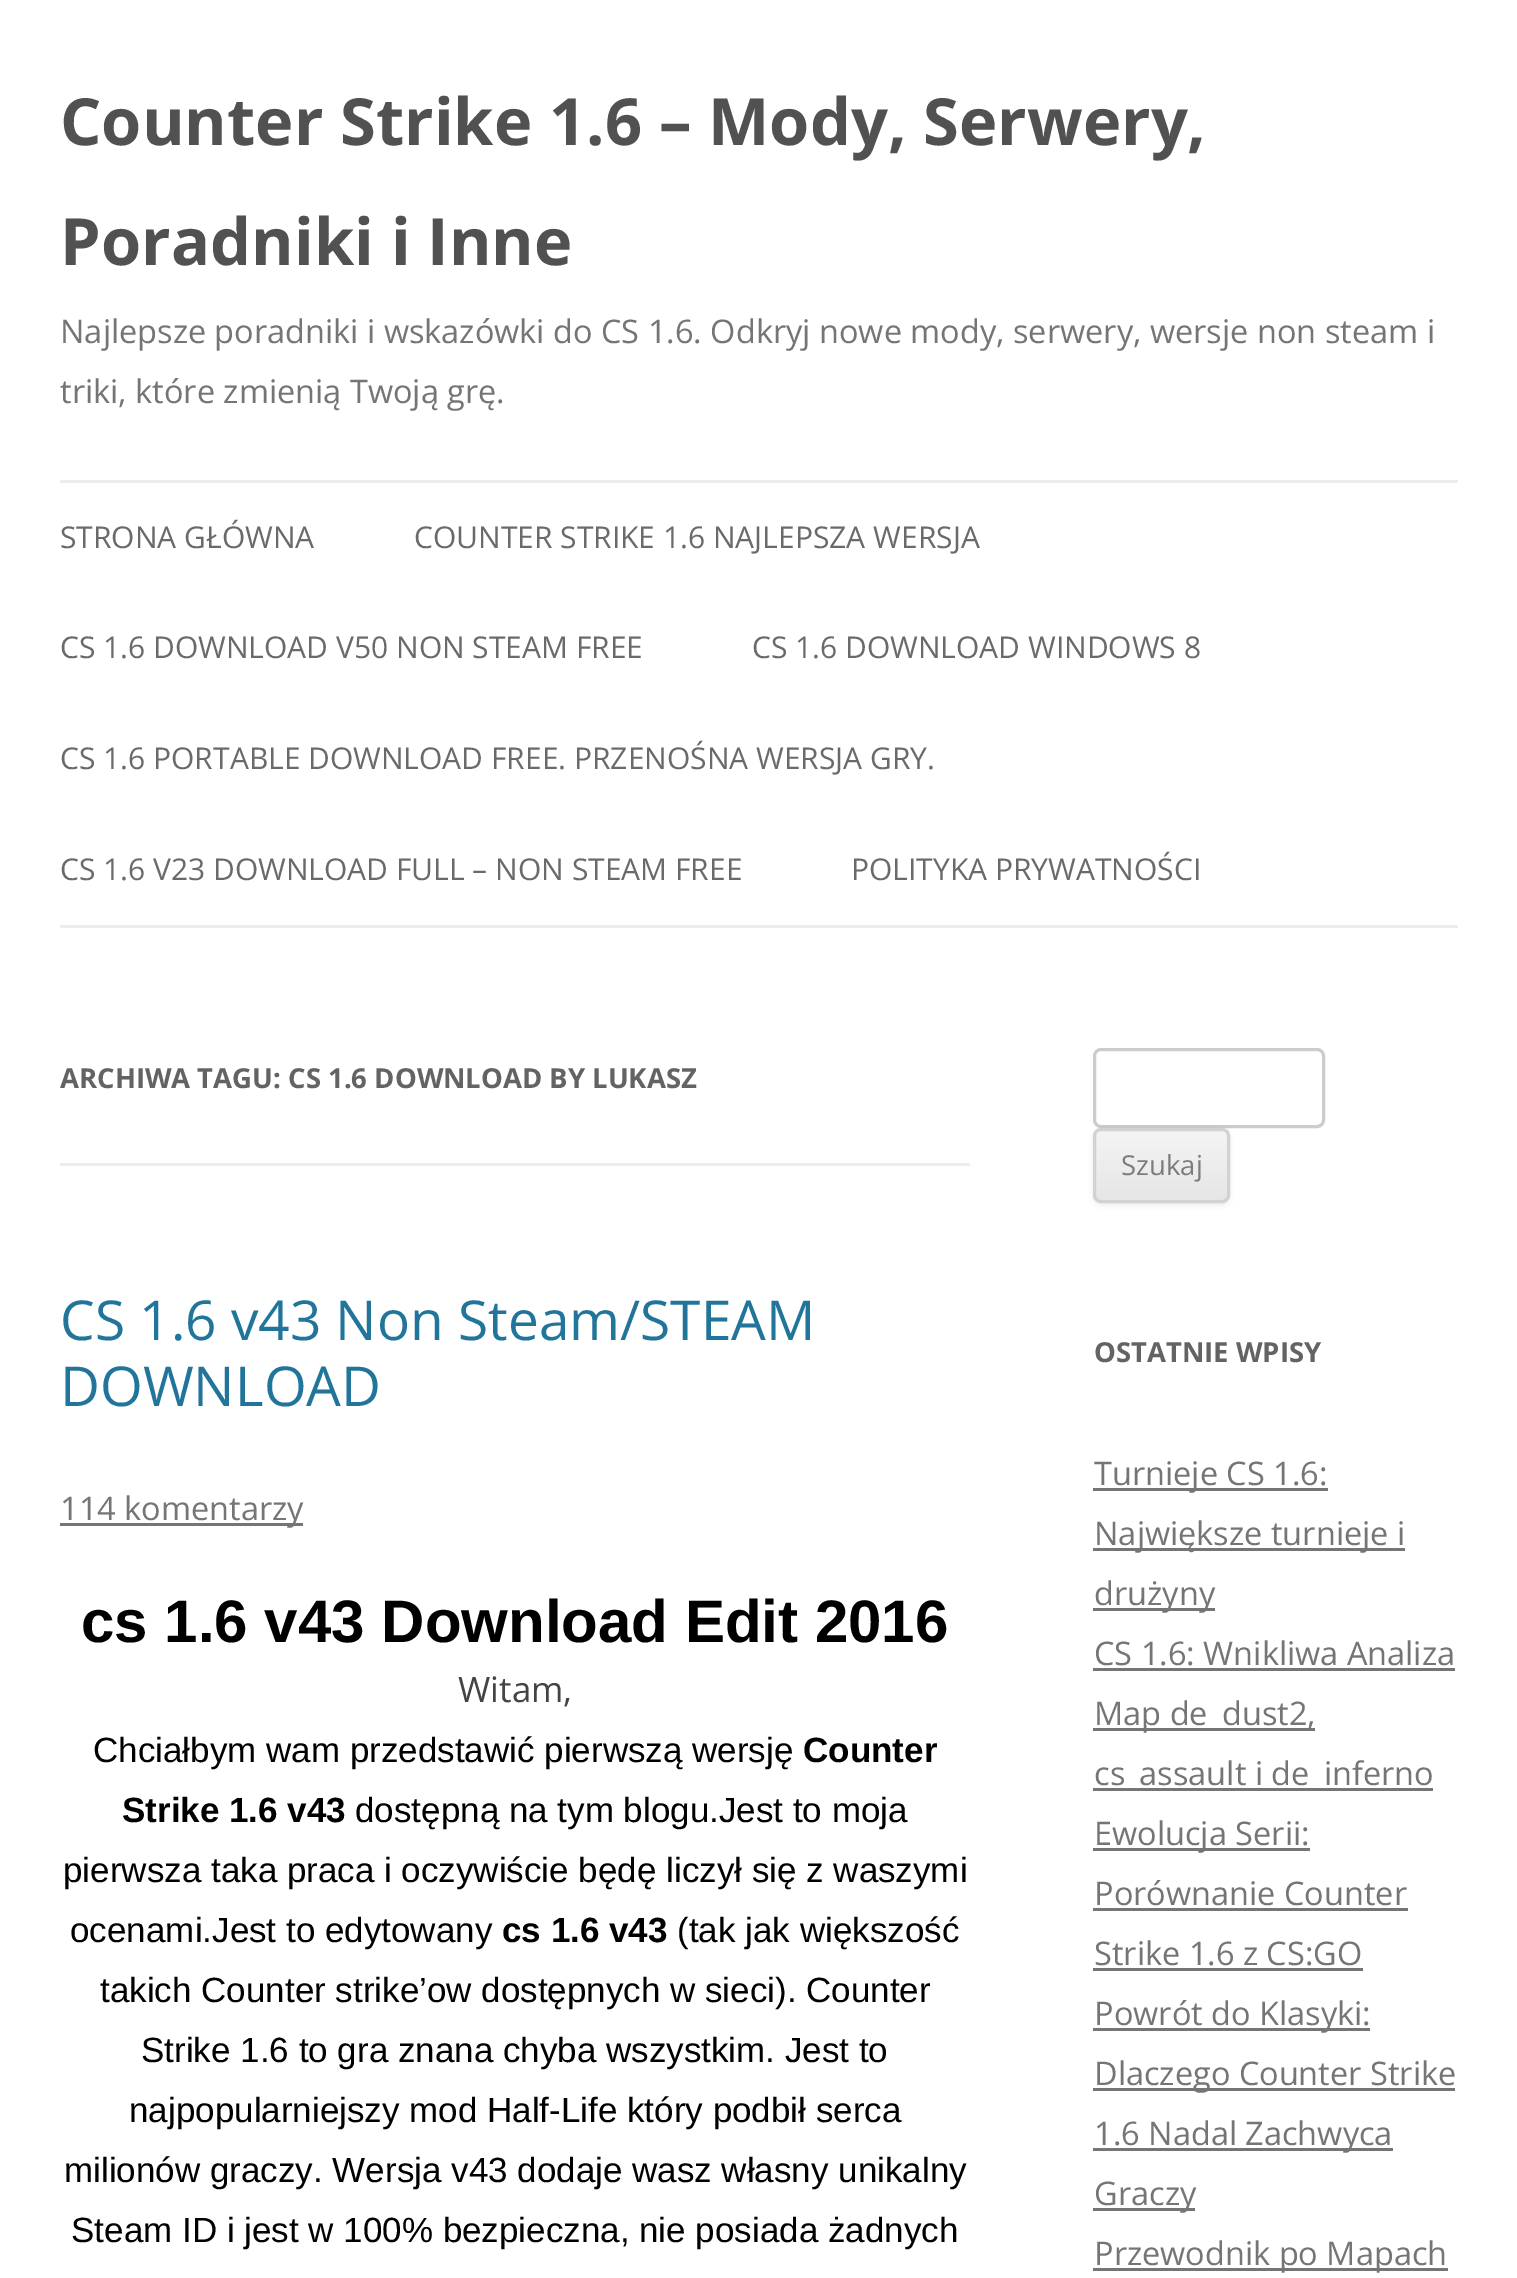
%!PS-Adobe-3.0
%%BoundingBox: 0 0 1517 2278
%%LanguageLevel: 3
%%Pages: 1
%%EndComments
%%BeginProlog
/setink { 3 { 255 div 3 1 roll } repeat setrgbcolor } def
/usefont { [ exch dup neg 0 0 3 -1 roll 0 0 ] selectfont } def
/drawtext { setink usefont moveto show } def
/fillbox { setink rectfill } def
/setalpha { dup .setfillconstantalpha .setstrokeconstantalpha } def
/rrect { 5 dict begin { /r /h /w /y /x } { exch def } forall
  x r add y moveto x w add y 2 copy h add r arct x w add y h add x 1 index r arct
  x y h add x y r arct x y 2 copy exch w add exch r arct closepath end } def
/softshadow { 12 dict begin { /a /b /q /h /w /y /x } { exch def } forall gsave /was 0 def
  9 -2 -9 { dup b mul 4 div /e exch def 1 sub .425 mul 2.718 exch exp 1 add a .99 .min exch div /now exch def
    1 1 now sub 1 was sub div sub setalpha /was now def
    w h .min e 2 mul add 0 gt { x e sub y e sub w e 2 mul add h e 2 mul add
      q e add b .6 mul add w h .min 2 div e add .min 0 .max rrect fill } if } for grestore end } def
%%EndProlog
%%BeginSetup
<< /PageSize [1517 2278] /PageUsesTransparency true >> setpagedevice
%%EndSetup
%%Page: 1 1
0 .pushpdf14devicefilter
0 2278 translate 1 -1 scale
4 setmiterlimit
0 0 1517 2278 255 255 255 fillbox
(Counter Strike 1.6 – Mody, Serwery,) 60 145 /OpenSans-Bold 65 81 81 81 drawtext
(Poradniki i Inne) 60 265 /OpenSans-Bold 65 81 81 81 drawtext
(Najlepsze poradniki i wskazówki do CS 1.6. Odkryj nowe mody, serwery, wersje non steam i) 60 343 /OpenSans-Regular 32.5 117 117 117 drawtext
(triki, które zmienią Twoją grę.) 60 403 /OpenSans-Regular 32.5 117 117 117 drawtext
60 480 1398 3 237 237 237 fillbox
60 925 1398 3 237 237 237 fillbox
(STRONA GŁÓWNA) 60 548 /OpenSans-Regular 30 106 106 106 drawtext
(COUNTER STRIKE 1.6 NAJLEPSZA WERSJA) 414 548 /OpenSans-Regular 30 106 106 106 drawtext
(CS 1.6 DOWNLOAD V50 NON STEAM FREE) 60 658 /OpenSans-Regular 30 106 106 106 drawtext
(CS 1.6 DOWNLOAD WINDOWS 8) 752 658 /OpenSans-Regular 30 106 106 106 drawtext
(CS 1.6 PORTABLE DOWNLOAD FREE. PRZENOŚNA WERSJA GRY.) 60 769 /OpenSans-Regular 30 106 106 106 drawtext
(CS 1.6 V23 DOWNLOAD FULL – NON STEAM FREE) 60 880 /OpenSans-Regular 30 106 106 106 drawtext
(POLITYKA PRYWATNOŚCI) 851 880 /OpenSans-Regular 30 106 106 106 drawtext
60 1163 910 3 237 237 237 fillbox
(ARCHIWA TAGU: CS 1.6 DOWNLOAD BY LUKASZ) 60 1088 /OpenSans-Bold 27.5 99 99 99 drawtext
(CS 1.6 v43 Non Steam/STEAM) 60 1340 /OpenSans-Regular 55 33 117 155 drawtext
(DOWNLOAD) 60 1406 /OpenSans-Regular 55 33 117 155 drawtext
60 1523 243 3 117 117 117 fillbox
(114 komentarzy) 60 1520 /OpenSans-Regular 32.5 117 117 117 drawtext
(cs 1.6 v43 Download Edit 2016) 81 1642 /LiberationSans-Bold 60 0 0 0 drawtext
(Witam,) 458 1702 /OpenSans-Regular 35 68 68 68 drawtext
(Chciałbym wam przedstawić pierwszą wersję) 93 1762 /LiberationSans-Regular 35 0 0 0 drawtext
(Counter) 803 1762 /LiberationSans-Bold 35 0 0 0 drawtext
(Strike 1.6 v43) 122 1822 /LiberationSans-Bold 35 0 0 0 drawtext
(dostępną na tym blogu.Jest to moja) 355 1822 /LiberationSans-Regular 35 0 0 0 drawtext
(pierwsza taka praca i oczywiście będę liczył się z waszymi) 63 1882 /LiberationSans-Regular 35 0 0 0 drawtext
(ocenami.Jest to edytowany) 70 1942 /LiberationSans-Regular 35 0 0 0 drawtext
(cs 1.6 v43) 502 1942 /LiberationSans-Bold 35 0 0 0 drawtext
(\(tak jak większość) 677 1942 /LiberationSans-Regular 35 0 0 0 drawtext
(takich Counter strike’ow dostępnych w sieci\). Counter) 100 2002 /LiberationSans-Regular 35 0 0 0 drawtext
(Strike 1.6 to gra znana chyba wszystkim. Jest to) 141 2062 /LiberationSans-Regular 35 0 0 0 drawtext
(najpopularniejszy mod Half-Life który podbił serca) 129 2122 /LiberationSans-Regular 35 0 0 0 drawtext
(milionów graczy. Wersja v43 dodaje wasz własny unikalny) 64 2182 /LiberationSans-Regular 35 0 0 0 drawtext
(Steam ID i jest w 100% bezpieczna, nie posiada żadnych) 71 2242 /LiberationSans-Regular 35 0 0 0 drawtext
204 204 204 setink
3 setlinewidth
1094.5 1049.5 229 77 6.5 rrect stroke
64 64 64 setink
1093 1130 137 75 8 2.5 0.1 softshadow
gsave
1093 1128 137 75 8 rrect clip newpath
gsave 1093 1130 moveto 1230 1130 lineto 1230 1200 lineto 1093 1200 lineto closepath clip newpath
<< /ShadingType 2 /ColorSpace /DeviceRGB /Coords [1161 1130 1161 1200] /Extend [true true] /Function << /FunctionType 2 /Domain [0 1] /C0 [0.957 0.957 0.957] /C1 [0.902 0.902 0.902] /N 1 >> >> shfill grestore
grestore
210 210 210 setink
1094.5 1129.5 134 72 6.5 rrect stroke
(Szukaj) 1121 1175 /OpenSans-Regular 27.5 124 124 124 drawtext
(OSTATNIE WPISY) 1094 1362 /OpenSans-Bold 27.5 99 99 99 drawtext
1093 1488 235 3 117 117 117 fillbox
(Turnieje CS 1.6:) 1094 1485 /OpenSans-Regular 32.5 117 117 117 drawtext
1093 1548 312 3 117 117 117 fillbox
(Największe turnieje i) 1094 1545 /OpenSans-Regular 32.5 117 117 117 drawtext
1093 1608 122 3 117 117 117 fillbox
(drużyny) 1094 1605 /OpenSans-Regular 32.5 117 117 117 drawtext
(CS 1.6: Wnikliwa Analiza) 1094 1665 /OpenSans-Regular 32.5 117 117 117 drawtext
1093 1668 362 3 117 117 117 fillbox
1093 1728 222 3 117 117 117 fillbox
(Map de_dust2,) 1094 1725 /OpenSans-Regular 32.5 117 117 117 drawtext
1093 1788 340 3 117 117 117 fillbox
(cs_assault i de_inferno) 1094 1785 /OpenSans-Regular 32.5 117 117 117 drawtext
1093 1848 217 3 117 117 117 fillbox
(Ewolucja Serii:) 1094 1845 /OpenSans-Regular 32.5 117 117 117 drawtext
(Porównanie Counter) 1094 1905 /OpenSans-Regular 32.5 117 117 117 drawtext
1093 1908 315 3 117 117 117 fillbox
(Strike 1.6 z CS:GO) 1094 1965 /OpenSans-Regular 32.5 117 117 117 drawtext
1093 1968 270 3 117 117 117 fillbox
1093 2028 277 3 117 117 117 fillbox
(Powrót do Klasyki:) 1094 2025 /OpenSans-Regular 32.5 117 117 117 drawtext
1093 2088 362 3 117 117 117 fillbox
(Dlaczego Counter Strike) 1094 2085 /OpenSans-Regular 32.5 117 117 117 drawtext
1093 2148 300 3 117 117 117 fillbox
(1.6 Nadal Zachwyca) 1094 2145 /OpenSans-Regular 32.5 117 117 117 drawtext
1093 2208 102 3 117 117 117 fillbox
(Graczy) 1094 2205 /OpenSans-Regular 32.5 117 117 117 drawtext
1093 2268 355 3 117 117 117 fillbox
(Przewodnik po Mapach) 1094 2265 /OpenSans-Regular 32.5 117 117 117 drawtext
.poppdf14devicefilter showpage
%%EOF
